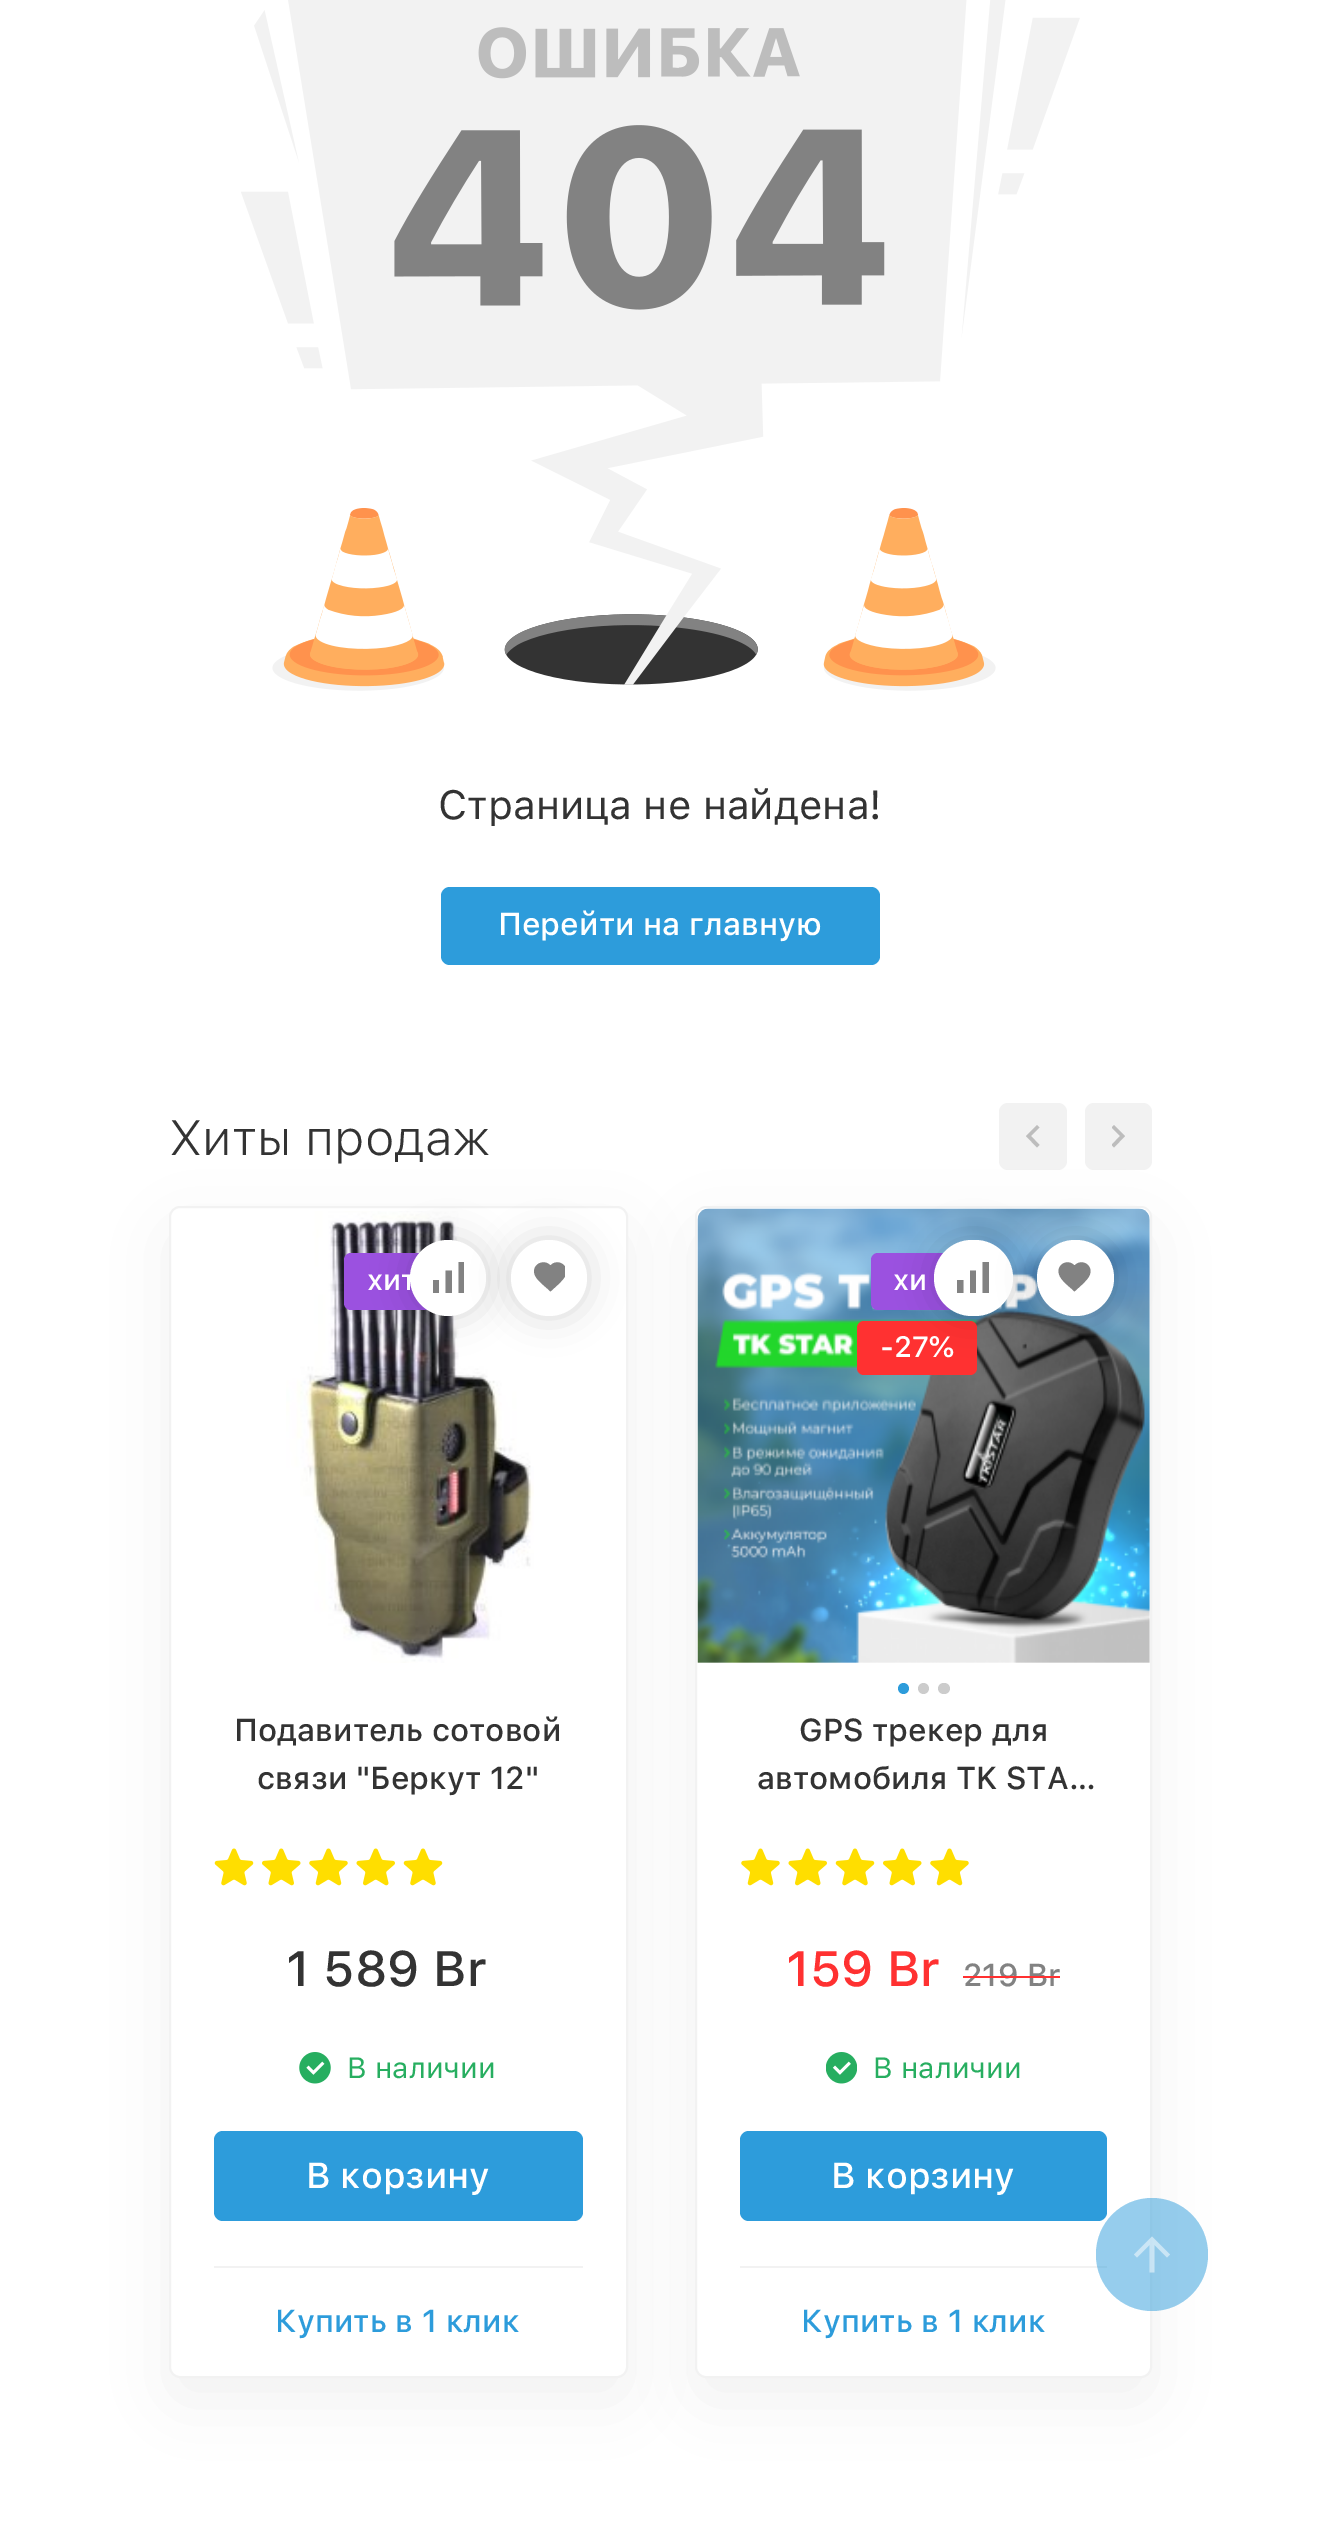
%!PS-Adobe-3.0
%%BoundingBox: 0 0 1320 2534
%%LanguageLevel: 3
%%Pages: 1
%%EndComments
%%BeginProlog
/setink { 3 { 255 div 3 1 roll } repeat setrgbcolor } def
/usefont { [ exch dup neg 0 0 3 -1 roll 0 0 ] selectfont } def
/drawtext { setink usefont moveto show } def
/fillbox { setink rectfill } def
/setalpha { dup .setfillconstantalpha .setstrokeconstantalpha } def
/disc { newpath 0 360 arc closepath } def
/rrect { 5 dict begin { /r /h /w /y /x } { exch def } forall
  x r add y moveto x w add y 2 copy h add r arct x w add y h add x 1 index r arct
  x y h add x y r arct x y 2 copy exch w add exch r arct closepath end } def
/softshadow { 12 dict begin { /a /b /q /h /w /y /x } { exch def } forall gsave /was 0 def
  9 -2 -9 { dup b mul 4 div /e exch def 1 sub .425 mul 2.718 exch exp 1 add a .99 .min exch div /now exch def
    1 1 now sub 1 was sub div sub setalpha /was now def
    w h .min e 2 mul add 0 gt { x e sub y e sub w e 2 mul add h e 2 mul add
      q e add b .6 mul add w h .min 2 div e add .min 0 .max rrect fill } if } for grestore end } def
/drawimage { 5 dict begin { /h /w /y /x /name } { exch def } forall
  gsave x y translate w h scale
  w h 8 [w 0 0 h 0 0] name (r) file false 3 colorimage grestore end } def
%%EndProlog
%%BeginSetup
<< /PageSize [1320 2534] /PageUsesTransparency true >> setpagedevice
%%EndSetup
%%Page: 1 1
0 .pushpdf14devicefilter
0 2534 translate 1 -1 scale
4 setmiterlimit
0 0 1320 2534 255 255 255 fillbox
(assets/img1.rgb) 241 0 839 691 drawimage
(Страница не найдена!) 438 819 /SFProText-Regular 40.5 51 51 51 drawtext
45 156 219 setink
441 887 439 78 9 rrect fill
(Перейти на главную) 498 935 /SFProText-Medium 31.5 255 255 255 drawtext
(Хиты продаж) 169 1155 /SFProText-Light 49.5 51 51 51 drawtext
242 242 242 setink
999 1103 68 67 9 rrect fill
189 189 189 setink
1039.5 1127.5 moveto 1031 1136 lineto 1039.5 1145 lineto 1037 1147.5 lineto 1026 1136 lineto 1037 1125 lineto closepath fill
242 242 242 setink
1085 1103 67 67 9 rrect fill
gsave
1112 1125 13 23 rectclip
189 189 189 setink
1111.5 1145 moveto 1120 1136 lineto 1111.5 1127.5 lineto 1114 1125 lineto 1125 1136 lineto 1114 1147.5 lineto closepath fill
grestore
0 0 0 setink
169 1229 459 1172 11 34 0.05 softshadow
255 255 255 setink
170 1207 457 1170 10 rrect gsave fill grestore
242 242 242 setink
2 setlinewidth
stroke
(assets/img2.rgb) 286 1211 248 452 drawimage
155 81 224 setink
344 1253 95 57 7 rrect fill
0 0 0 setink
410 1240 76 76 38 18.5 0.15 softshadow
255 255 255 setink
448 1278 38 disc fill
0 0 0 setink
511 1240 76 76 38 18.5 0.15 softshadow
gsave
433 1262 31 31 rectclip
130 130 130 setink
445.5 1293 moveto 445.5 1270.5 lineto 452 1270.5 lineto 452 1293 lineto closepath 458.5 1293 moveto 458.5 1260.5 lineto 465 1260.5 lineto 465 1293 lineto closepath 433 1293 moveto 433 1280 lineto 439 1280 lineto 439 1293 lineto closepath fill
grestore
255 255 255 setink
549 1278 38 disc fill
gsave
534 1262 31 31 rectclip
130 130 130 setink
550.5 1291.5 moveto 545.5 1286.5 538 1281.5 535 1275.5 curveto 530.5 1265 543.5 1258 550.5 1265.5 curveto 557 1258 570 1265 565.5 1275.5 curveto 562.5 1281.5 555.5 1286.5 550.5 1291.5 curveto closepath fill
grestore
(хит) 367 1290 /SFProText-Medium 29.25 255 255 255 drawtext
(Подавитель сотовой) 234 1741 /SFProText-Medium 31.5 51 51 51 drawtext
(связи "Беркут 12") 257 1789 /SFProText-Medium 31.5 51 51 51 drawtext
(assets/img3.rgb) 214 1848 40 38 drawimage
(assets/img4.rgb) 262 1848 39 38 drawimage
(assets/img5.rgb) 309 1848 39 38 drawimage
(assets/img6.rgb) 356 1848 39 38 drawimage
(assets/img3.rgb) 403 1848 40 38 drawimage
(1 589 Br) 286 1986 /SFProText-Medium 49.5 51 51 51 drawtext
(assets/img7.rgb) 299 2052 32 32 drawimage
(В наличии) 347 2078 /SFProText-Regular 29.25 39 174 96 drawtext
45 156 219 setink
214 2131 369 90 9 rrect fill
(В корзину) 306 2188 /SFProText-Medium 36 255 255 255 drawtext
214 2266 369 2 242 242 242 fillbox
(Купить в 1 клик) 275 2332 /SFProText-Medium 31.5 45 156 219 drawtext
0 0 0 setink
695 1229 457 1172 11 34 0.05 softshadow
255 255 255 setink
696 1207 455 1170 10 rrect gsave fill grestore
242 242 242 setink
stroke
(assets/img8.rgb) 697 1208 453 455 drawimage
155 81 224 setink
871 1253 94 57 7 rrect fill
255 49 49 setink
857 1321 120 54 7 rrect fill
0 0 0 setink
934 1240 79 76 38 18.5 0.15 softshadow
255 255 255 setink
934 1240 79 76 38 rrect fill
0 0 0 setink
1037 1240 77 76 38 18.5 0.15 softshadow
gsave
957 1262 32 31 rectclip
130 130 130 setink
970 1293 moveto 970 1270.5 lineto 976 1270.5 lineto 976 1293 lineto closepath 982.5 1293 moveto 982.5 1260.5 lineto 989 1260.5 lineto 989 1293 lineto closepath 957 1293 moveto 957 1280 lineto 963.5 1280 lineto 963.5 1293 lineto closepath fill
grestore
255 255 255 setink
1037 1240 77 76 38 rrect fill
130 130 130 setink
1074.5 1291.5 moveto 1069.5 1286.5 1062 1281.5 1059.5 1275.5 curveto 1055 1265 1067.5 1258 1074.5 1265.5 curveto 1081.5 1258 1094 1265 1089.5 1275.5 curveto 1086.5 1281.5 1079.5 1286.5 1074.5 1291.5 curveto closepath fill
45 156 219 setink
903.5 1688.5 5.5 disc fill
204 204 204 setink
923.5 1688.5 5.5 disc fill
938 1683 12 11 5.5 rrect fill
(хи) 893 1290 /SFProText-Medium 29.25 255 255 255 drawtext
(-27%) 880 1357 /SFProText-Medium 29.25 255 255 255 drawtext
(GPS трекер для) 799 1741 /SFProText-Medium 31.5 51 51 51 drawtext
(автомобиля TK STA…) 757 1789 /SFProText-Medium 31.5 51 51 51 drawtext
(assets/img5.rgb) 741 1848 39 38 drawimage
(assets/img6.rgb) 788 1848 39 38 drawimage
(assets/img3.rgb) 835 1848 40 38 drawimage
(assets/img4.rgb) 883 1848 39 38 drawimage
(assets/img5.rgb) 930 1848 39 38 drawimage
(159 Br) 786 1986 /SFProText-Medium 49.5 255 49 49 drawtext
(219 Br) 963 1986 /SFProText-Medium 31.5 130 130 130 drawtext
963 1976 97 2 255 49 49 fillbox
(assets/img9.rgb) 826 2052 31 32 drawimage
(В наличии) 873 2078 /SFProText-Regular 29.25 39 174 96 drawtext
45 156 219 setink
740 2131 367 90 9 rrect fill
(В корзину) 831 2188 /SFProText-Medium 36 255 255 255 drawtext
740 2266 367 2 242 242 242 fillbox
(Купить в 1 клик) 801 2332 /SFProText-Medium 31.5 45 156 219 drawtext
0.5 setalpha
1096 2198 112 113 56 rrect fill
255 255 255 setink
1154.5 2272.5 moveto 1149.5 2272.5 lineto 1149.5 2245 lineto 1137 2257.5 lineto 1134 2254.5 lineto 1152 2236.5 lineto 1170 2254.5 lineto 1167 2257.5 lineto 1154.5 2245 lineto closepath fill
.poppdf14devicefilter showpage
%%EOF
